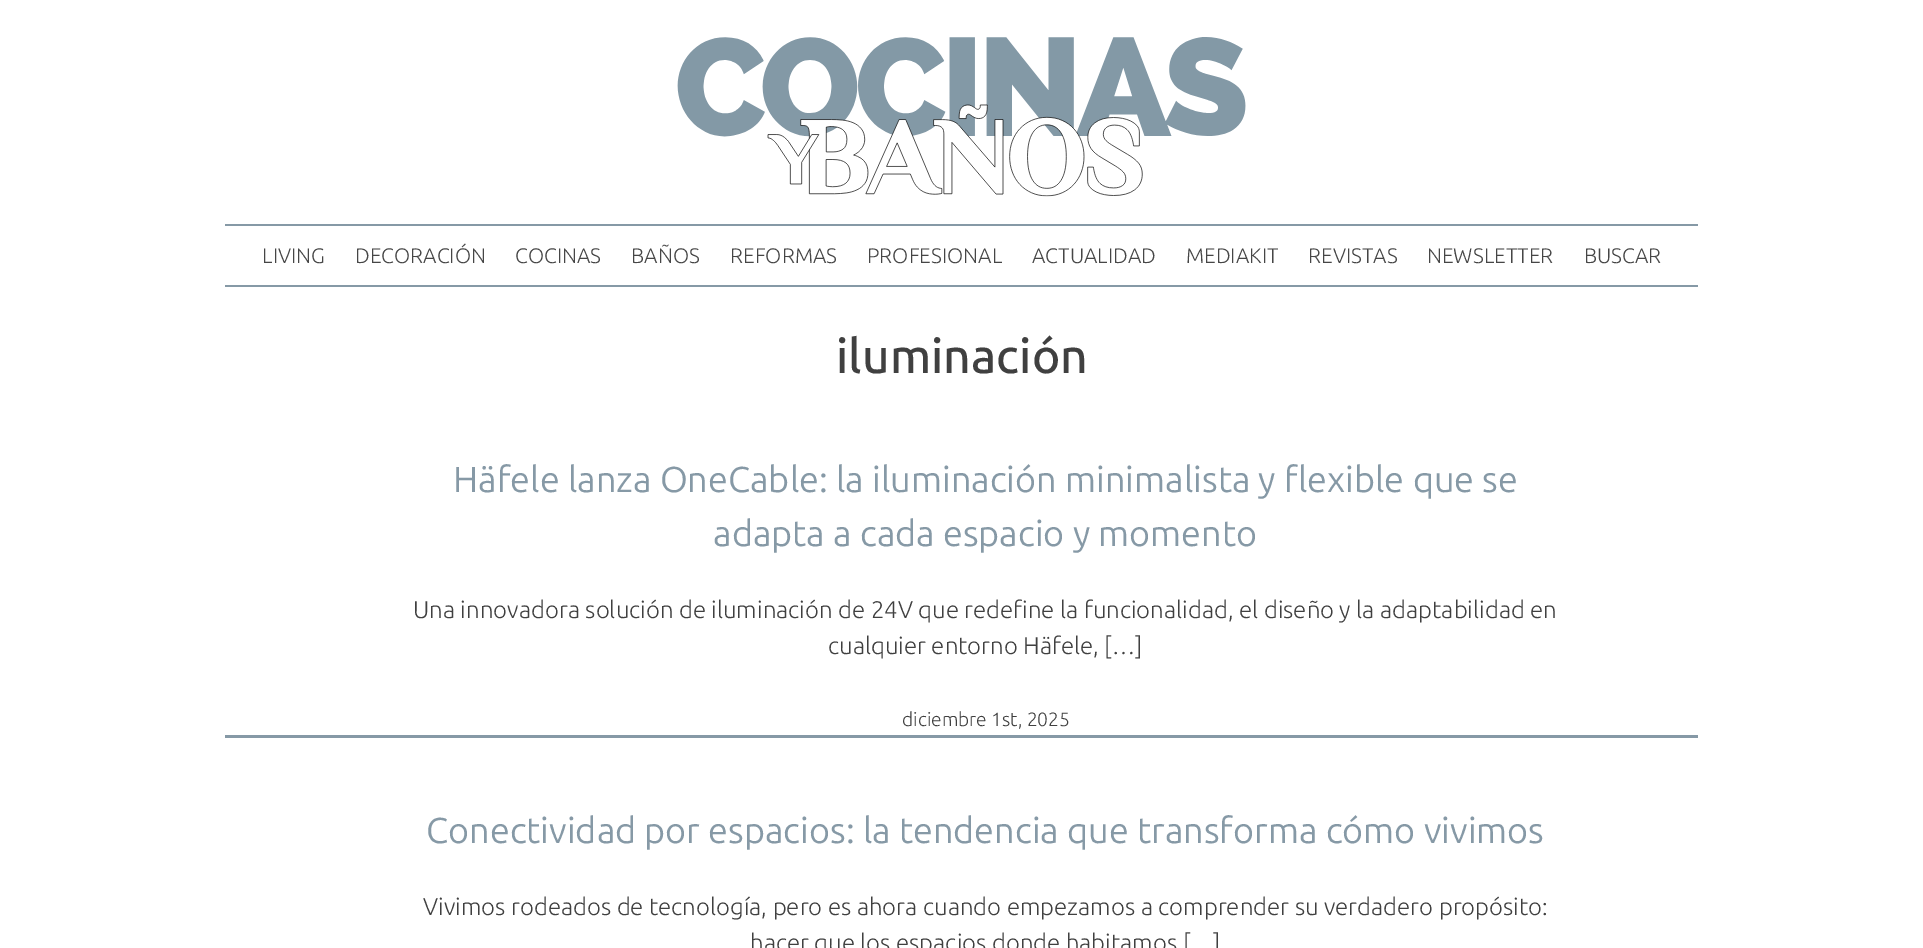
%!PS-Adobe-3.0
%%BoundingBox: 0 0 1923 948
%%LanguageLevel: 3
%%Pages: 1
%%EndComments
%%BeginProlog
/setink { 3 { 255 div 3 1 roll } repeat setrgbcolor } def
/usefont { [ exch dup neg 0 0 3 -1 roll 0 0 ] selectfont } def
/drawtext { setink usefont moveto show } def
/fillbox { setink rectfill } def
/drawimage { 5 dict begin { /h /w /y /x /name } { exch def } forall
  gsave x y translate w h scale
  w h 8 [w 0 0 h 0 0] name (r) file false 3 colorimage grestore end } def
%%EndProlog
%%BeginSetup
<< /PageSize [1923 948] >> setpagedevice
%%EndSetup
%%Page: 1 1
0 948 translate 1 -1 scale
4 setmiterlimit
0 0 1923 948 255 255 255 fillbox
(assets/img1.rgb) 677 37 569 160 drawimage
225 224 1473 2 134 153 166 fillbox
225 285 1473 2 134 153 166 fillbox
(LIVING) 262 263 /Ubuntu-Light 21 70 70 70 drawtext
(DECORACIÓN) 355 263 /Ubuntu-Light 21 70 70 70 drawtext
(COCINAS) 515 263 /Ubuntu-Light 21 70 70 70 drawtext
(BAÑOS) 631 263 /Ubuntu-Light 21 70 70 70 drawtext
(REFORMAS) 730 263 /Ubuntu-Light 21 70 70 70 drawtext
(PROFESIONAL) 867 263 /Ubuntu-Light 21 70 70 70 drawtext
(ACTUALIDAD) 1032 263 /Ubuntu-Light 21 70 70 70 drawtext
(MEDIAKIT) 1186 263 /Ubuntu-Light 21 70 70 70 drawtext
(REVISTAS) 1308 263 /Ubuntu-Light 21 70 70 70 drawtext
(NEWSLETTER) 1427 263 /Ubuntu-Light 21 70 70 70 drawtext
(BUSCAR) 1584 263 /Ubuntu-Light 21 70 70 70 drawtext
(iluminación) 836 373 /Ubuntu-Medium 48 64 64 64 drawtext
225 735 1473 3 134 153 166 fillbox
(Häfele lanza OneCable: la iluminación minimalista y flexible que se) 453 492 /Ubuntu-Regular 36 134 153 166 drawtext
(adapta a cada espacio y momento) 713 546 /Ubuntu-Regular 36 134 153 166 drawtext
(Una innovadora solución de iluminación de 24V que redefine la funcionalidad, el diseño y la adaptabilidad en) 413 618 /Ubuntu-Light 24 64 64 64 drawtext
(cualquier entorno Häfele, […]) 828 654 /Ubuntu-Light 24 64 64 64 drawtext
(diciembre 1st, 2025) 902 726 /Ubuntu-Light 19.25 64 64 64 drawtext
(Conectividad por espacios: la tendencia que transforma cómo vivimos) 426 843 /Ubuntu-Regular 36 134 153 166 drawtext
(Vivimos rodeados de tecnología, pero es ahora cuando empezamos a comprender su verdadero propósito:) 423 915 /Ubuntu-Light 24 64 64 64 drawtext
(hacer que los espacios donde habitamos […]) 750 951 /Ubuntu-Light 24 64 64 64 drawtext
showpage
%%EOF
